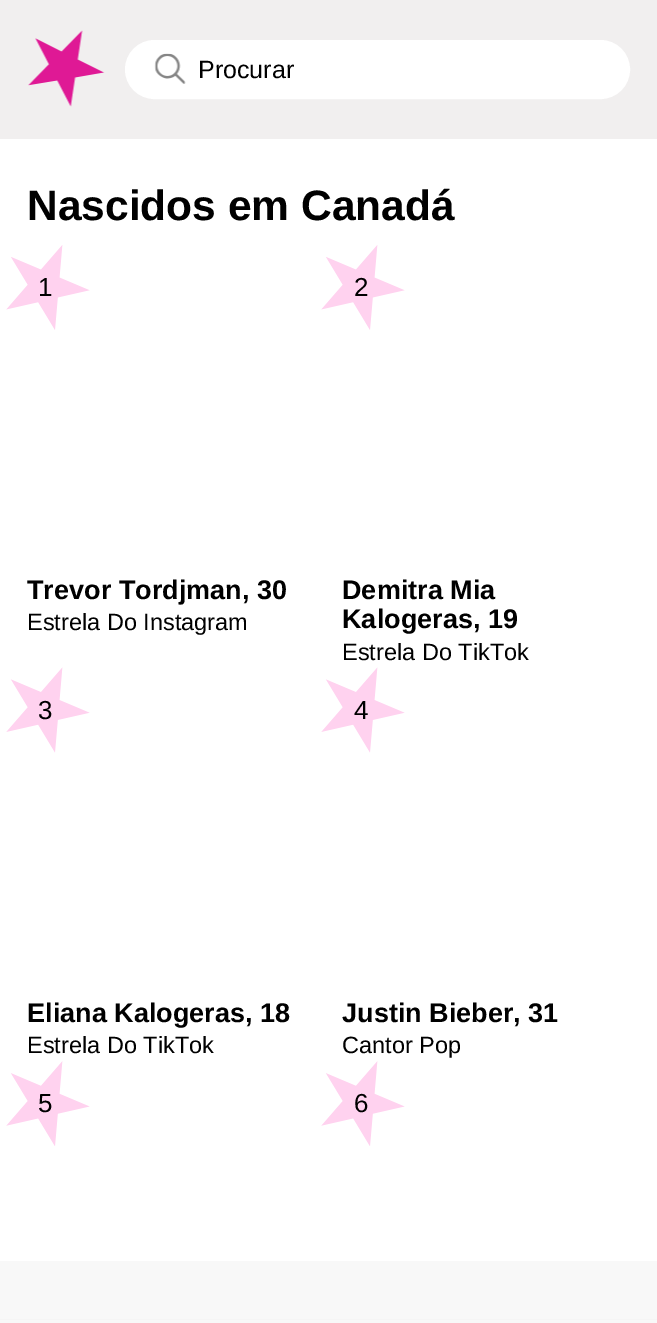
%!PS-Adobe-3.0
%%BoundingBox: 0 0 657 1323
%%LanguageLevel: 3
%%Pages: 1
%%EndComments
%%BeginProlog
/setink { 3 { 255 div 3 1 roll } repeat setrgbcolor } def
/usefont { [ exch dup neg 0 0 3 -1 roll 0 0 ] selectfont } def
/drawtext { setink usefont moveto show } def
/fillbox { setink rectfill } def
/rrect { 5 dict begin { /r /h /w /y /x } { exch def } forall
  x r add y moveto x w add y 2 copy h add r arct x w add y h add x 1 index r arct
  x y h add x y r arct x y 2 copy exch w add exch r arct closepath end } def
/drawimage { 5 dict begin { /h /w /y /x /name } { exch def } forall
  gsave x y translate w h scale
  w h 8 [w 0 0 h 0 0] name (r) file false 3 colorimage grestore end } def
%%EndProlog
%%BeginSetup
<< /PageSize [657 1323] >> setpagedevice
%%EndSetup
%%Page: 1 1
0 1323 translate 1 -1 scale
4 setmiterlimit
0 0 657 1323 255 255 255 fillbox
0 1261 657 58 248 248 248 fillbox
0 0 657 139 241 239 239 fillbox
(assets/img1.rgb) 28 30 77 77 drawimage
255 255 255 setink
126.5 41.5 502 56 28 rrect gsave fill grestore
3 setlinewidth
stroke
(assets/img2.rgb) 154 53 32 31 drawimage
(Procurar) 198 78 /LiberationSans-Regular 25 0 0 0 drawtext
(Nascidos em Canadá) 27 220 /LiberationSans-Bold 42.5 0 0 0 drawtext
(assets/img3.rgb) 6 245 84 85 drawimage
(1) 38 296 /LiberationSans-Regular 26 0 0 0 drawtext
(Trevor Tordjman, 30) 27 599 /LiberationSans-Bold 27 0 0 0 drawtext
(Estrela Do Instagram) 27 630 /LiberationSans-Regular 23.5 0 0 0 drawtext
(assets/img3.rgb) 321 245 84 85 drawimage
(2) 354 296 /LiberationSans-Regular 26 0 0 0 drawtext
(Demitra Mia) 342 599 /LiberationSans-Bold 27 0 0 0 drawtext
(Kalogeras, 19) 342 628 /LiberationSans-Bold 27 0 0 0 drawtext
(Estrela Do TikTok) 342 660 /LiberationSans-Regular 23.5 0 0 0 drawtext
(assets/img4.rgb) 6 667 84 86 drawimage
(3) 38 719 /LiberationSans-Regular 26 0 0 0 drawtext
(Eliana Kalogeras, 18) 27 1022 /LiberationSans-Bold 27 0 0 0 drawtext
(Estrela Do TikTok) 27 1053 /LiberationSans-Regular 23.5 0 0 0 drawtext
(assets/img4.rgb) 321 667 84 86 drawimage
(4) 354 719 /LiberationSans-Regular 26 0 0 0 drawtext
(Justin Bieber, 31) 342 1022 /LiberationSans-Bold 27 0 0 0 drawtext
(Cantor Pop) 342 1053 /LiberationSans-Regular 23.5 0 0 0 drawtext
(assets/img5.rgb) 6 1061 84 85 drawimage
(5) 38 1112 /LiberationSans-Regular 26 0 0 0 drawtext
(assets/img5.rgb) 321 1061 84 85 drawimage
(6) 354 1112 /LiberationSans-Regular 26 0 0 0 drawtext
0 1320 657 3 248 248 248 fillbox
0 1319 657 1 245 245 245 fillbox
showpage
%%EOF
